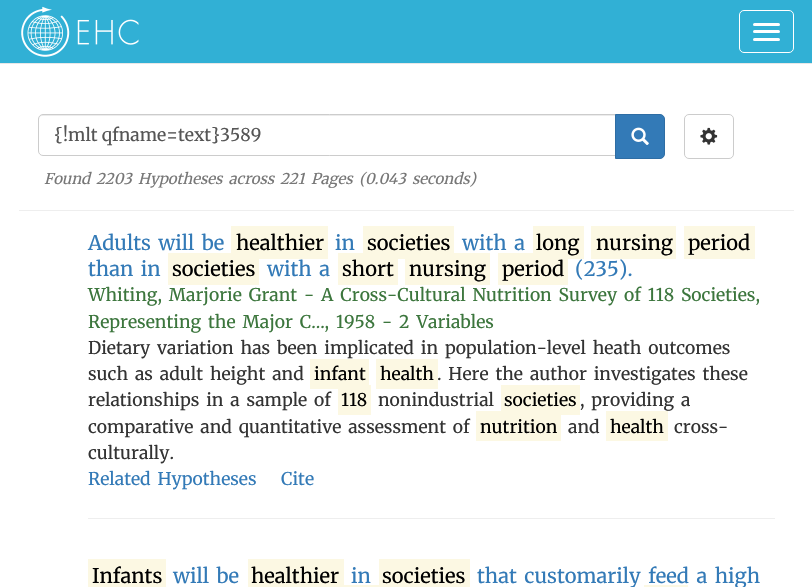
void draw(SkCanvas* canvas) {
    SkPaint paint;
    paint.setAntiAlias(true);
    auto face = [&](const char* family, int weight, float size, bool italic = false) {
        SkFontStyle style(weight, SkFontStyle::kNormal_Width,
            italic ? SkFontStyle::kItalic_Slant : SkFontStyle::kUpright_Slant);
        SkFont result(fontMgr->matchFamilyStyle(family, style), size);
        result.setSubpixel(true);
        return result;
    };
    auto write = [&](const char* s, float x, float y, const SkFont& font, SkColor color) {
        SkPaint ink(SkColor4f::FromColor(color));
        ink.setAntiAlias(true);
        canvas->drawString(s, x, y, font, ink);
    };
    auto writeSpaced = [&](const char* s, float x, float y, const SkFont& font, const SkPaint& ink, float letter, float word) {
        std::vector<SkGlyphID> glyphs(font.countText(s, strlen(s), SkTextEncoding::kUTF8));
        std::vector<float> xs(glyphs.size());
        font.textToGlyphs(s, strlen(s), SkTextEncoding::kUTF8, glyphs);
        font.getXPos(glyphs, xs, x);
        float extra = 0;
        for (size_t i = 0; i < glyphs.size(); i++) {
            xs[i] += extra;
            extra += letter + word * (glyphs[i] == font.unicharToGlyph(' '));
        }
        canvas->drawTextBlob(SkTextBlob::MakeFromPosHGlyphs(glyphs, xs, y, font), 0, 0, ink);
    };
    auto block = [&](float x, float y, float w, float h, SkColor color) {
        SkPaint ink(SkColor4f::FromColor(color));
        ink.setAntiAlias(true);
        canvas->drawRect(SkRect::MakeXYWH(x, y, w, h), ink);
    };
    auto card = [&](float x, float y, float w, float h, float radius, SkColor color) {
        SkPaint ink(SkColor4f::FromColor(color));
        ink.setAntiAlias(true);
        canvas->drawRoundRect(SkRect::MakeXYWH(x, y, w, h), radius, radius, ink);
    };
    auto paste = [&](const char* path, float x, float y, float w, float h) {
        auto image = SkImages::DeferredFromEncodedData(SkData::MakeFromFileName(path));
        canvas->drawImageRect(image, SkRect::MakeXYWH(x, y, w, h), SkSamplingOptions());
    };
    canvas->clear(SK_ColorWHITE);
    block(0, 0, 812, 63, SkColorSetRGB(49, 176, 213));
    block(0, 63, 812, 1, SkColorSetRGB(231, 231, 231));
    paste("pic1.png", 21, 6, 118, 51);
    paint.setStyle(SkPaint::kStroke_Style);
    paint.setStrokeWidth(1);
    paint.setColor(SK_ColorWHITE);
    canvas->drawRoundRect(SkRect::MakeXYWH(739.5f, 10.5f, 54, 42), 4.5f, 4.5f, paint);
    card(753, 23, 27, 3, 1.5f, SK_ColorWHITE);
    card(753, 30, 27, 3, 1.5f, SK_ColorWHITE);
    card(753, 38, 27, 3, 1.5f, SK_ColorWHITE);
    paint.setStyle(SkPaint::kFill_Style);
    paint.setColor(SkColorSetRGB(236, 236, 236));
    canvas->drawPath(SkPathBuilder().moveTo(42, 116).lineTo(615, 116).lineTo(615, 115).lineTo(43, 115).cubicTo(40, 115, 39, 117, 39, 120).cubicTo(39, 118, 40, 116, 42, 116).close().detach(), paint);
    paint.setStyle(SkPaint::kStroke_Style);
    paint.setColor(SkColorSetRGB(204, 204, 204));
    canvas->drawPath(SkPathBuilder().moveTo(43, 114.5f).lineTo(615.5f, 114.5f).lineTo(615.5f, 155.5f).lineTo(43, 155.5f).cubicTo(40.5f, 155.5f, 38.5f, 153.5f, 38.5f, 151).lineTo(38.5f, 119).cubicTo(38.5f, 116.5f, 40.5f, 114.5f, 43, 114.5f).close().detach(), paint);
    auto kFont1 = face("Merriweather", 300, 17.5f);
    write("{!mlt qfname=text}3589", 54, 141, kFont1, SkColorSetRGB(85, 85, 85));
    paint.setStyle(SkPaint::kFill_Style);
    paint.setColor(SkColorSetRGB(51, 122, 183));
    canvas->drawPath(SkPathBuilder().moveTo(615.5f, 114.5f).lineTo(660, 114.5f).cubicTo(662.5f, 114.5f, 664.5f, 116.5f, 664.5f, 119).lineTo(664.5f, 154).cubicTo(664.5f, 156.5f, 662.5f, 158.5f, 660, 158.5f).lineTo(615.5f, 158.5f).close().detach(), paint);
    paint.setStyle(SkPaint::kStroke_Style);
    paint.setColor(SkColorSetRGB(46, 109, 164));
    canvas->drawPath(SkPathBuilder().moveTo(615.5f, 114.5f).lineTo(660, 114.5f).cubicTo(662.5f, 114.5f, 664.5f, 116.5f, 664.5f, 119).lineTo(664.5f, 154).cubicTo(664.5f, 156.5f, 662.5f, 158.5f, 660, 158.5f).lineTo(615.5f, 158.5f).close().detach(), paint);
    paste("pic2.png", 631, 127, 18, 18);
    paint.setColor(SkColorSetRGB(204, 204, 204));
    canvas->drawRoundRect(SkRect::MakeXYWH(684.5f, 114.5f, 49, 44), 4.5f, 4.5f, paint);
    paste("pic3.png", 700, 127, 18, 18);
    block(19, 210, 775, 1, SkColorSetRGB(238, 238, 238));
    auto kFont2 = face("Merriweather", 300, 14.9f, true);
    write("Found", 44, 184, kFont2, SkColorSetRGB(119, 119, 119));
    write("2203", 96, 184, kFont2, SkColorSetRGB(119, 119, 119));
    paint.setStyle(SkPaint::kFill_Style);
    paint.setColor(SkColorSetRGB(119, 119, 119));
    writeSpaced("Hypotheses across", 138, 184, kFont2, paint, 0, 2.75f);
    write("221", 280, 184, kFont2, SkColorSetRGB(119, 119, 119));
    writeSpaced("Pages (", 311, 184, kFont2, paint, 0, 2.75f);
    write("0.043", 365, 184, kFont2, SkColorSetRGB(119, 119, 119));
    write("seconds)", 412, 184, kFont2, SkColorSetRGB(119, 119, 119));
    auto kFont3 = face("Merriweather", 300, 20.1f);
    paint.setColor(SkColorSetRGB(51, 122, 183));
    writeSpaced("Adults will be", 88, 250, kFont3, paint, 0, 2.75f);
    block(231, 226, 97, 33, SkColorSetRGB(252, 248, 227));
    write("healthier", 236, 250, kFont3, SK_ColorBLACK);
    write("in", 335, 250, kFont3, SkColorSetRGB(51, 122, 183));
    block(363, 226, 91, 33, SkColorSetRGB(252, 248, 227));
    write("societies", 367, 250, kFont3, SK_ColorBLACK);
    writeSpaced("with a", 462, 250, kFont3, paint, 0, 2.75f);
    block(533, 226, 51, 33, SkColorSetRGB(252, 248, 227));
    write("long", 536, 250, kFont3, SK_ColorBLACK);
    block(591, 226, 85, 33, SkColorSetRGB(252, 248, 227));
    write("nursing", 596, 250, kFont3, SK_ColorBLACK);
    block(684, 226, 71, 33, SkColorSetRGB(252, 248, 227));
    write("period", 688, 250, kFont3, SK_ColorBLACK);
    writeSpaced("than in", 88, 276, kFont3, paint, 0, 2.75f);
    block(168, 253, 91, 32, SkColorSetRGB(252, 248, 227));
    write("societies", 172, 276, kFont3, SK_ColorBLACK);
    writeSpaced("with a", 267, 276, kFont3, paint, 0, 2.75f);
    block(338, 253, 60, 32, SkColorSetRGB(252, 248, 227));
    write("short", 342, 276, kFont3, SK_ColorBLACK);
    block(405, 253, 85, 32, SkColorSetRGB(252, 248, 227));
    write("nursing", 409, 276, kFont3, SK_ColorBLACK);
    block(498, 253, 70, 32, SkColorSetRGB(252, 248, 227));
    write("period", 502, 276, kFont3, SK_ColorBLACK);
    write("(235).", 575, 276, kFont3, SkColorSetRGB(51, 122, 183));
    paint.setColor(SkColorSetRGB(60, 118, 61));
    writeSpaced("Whiting, Marjorie Grant - A Cross-Cultural Nutrition Survey of 118 Societies,", 88, 301, kFont1, paint, 0, 2.75f);
    writeSpaced("Representing the Major C..., 1958 - 2 Variables", 88, 328, kFont1, paint, 0, 2.75f);
    paint.setColor(SkColorSetRGB(51, 51, 51));
    writeSpaced("Dietary variation has been implicated in population-level heath outcomes", 88, 354, kFont1, paint, 0, 2.75f);
    writeSpaced("such as adult height and", 88, 380, kFont1, paint, 0, 2.75f);
    block(310, 359, 59, 30, SkColorSetRGB(252, 248, 227));
    write("infant", 314, 380, kFont1, SK_ColorBLACK);
    block(376, 359, 62, 30, SkColorSetRGB(252, 248, 227));
    write("health", 380, 380, kFont1, SK_ColorBLACK);
    writeSpaced(". Here the author investigates these", 437, 380, kFont1, paint, 0, 2.75f);
    writeSpaced("relationships in a sample of", 88, 406, kFont1, paint, 0, 2.75f);
    block(338, 385, 33, 30, SkColorSetRGB(252, 248, 227));
    write("118", 341, 406, kFont1, SK_ColorBLACK);
    write("nonindustrial", 378, 406, kFont1, SkColorSetRGB(51, 51, 51));
    block(501, 385, 79, 30, SkColorSetRGB(252, 248, 227));
    write("societies", 504, 406, kFont1, SK_ColorBLACK);
    writeSpaced(", providing a", 580, 406, kFont1, paint, 0, 2.75f);
    writeSpaced("comparative and quantitative assessment of", 88, 433, kFont1, paint, 0, 2.75f);
    block(476, 411, 85, 30, SkColorSetRGB(252, 248, 227));
    write("nutrition", 480, 433, kFont1, SK_ColorBLACK);
    write("and", 568, 433, kFont1, SkColorSetRGB(51, 51, 51));
    block(606, 411, 62, 30, SkColorSetRGB(252, 248, 227));
    write("health", 610, 433, kFont1, SK_ColorBLACK);
    write("cross-", 674, 433, kFont1, SkColorSetRGB(51, 51, 51));
    write("culturally.", 88, 459, kFont1, SkColorSetRGB(51, 51, 51));
    paint.setColor(SkColorSetRGB(51, 122, 183));
    writeSpaced("Related Hypotheses", 88, 485, kFont1, paint, 0, 2.75f);
    write("Cite", 281, 485, kFont1, SkColorSetRGB(51, 122, 183));
    block(88, 518, 687, 1, SkColorSetRGB(238, 238, 238));
    block(88, 559, 78, 28, SkColorSetRGB(252, 248, 227));
    write("Infants", 92, 583, kFont3, SK_ColorBLACK);
    writeSpaced("will be", 173, 583, kFont3, paint, 0, 2.75f);
    block(248, 559, 96, 28, SkColorSetRGB(252, 248, 227));
    write("healthier", 251, 583, kFont3, SK_ColorBLACK);
    write("in", 351, 583, kFont3, SkColorSetRGB(51, 122, 183));
    block(379, 559, 91, 28, SkColorSetRGB(252, 248, 227));
    write("societies", 382, 583, kFont3, SK_ColorBLACK);
    writeSpaced("that customarily feed a high", 477, 583, kFont3, paint, 0, 2.75f);
    block(344, 585, 35, 2, SkColorSetRGB(252, 248, 227));
    block(644, 585, 44, 2, SkColorSetRGB(252, 248, 227));
}
